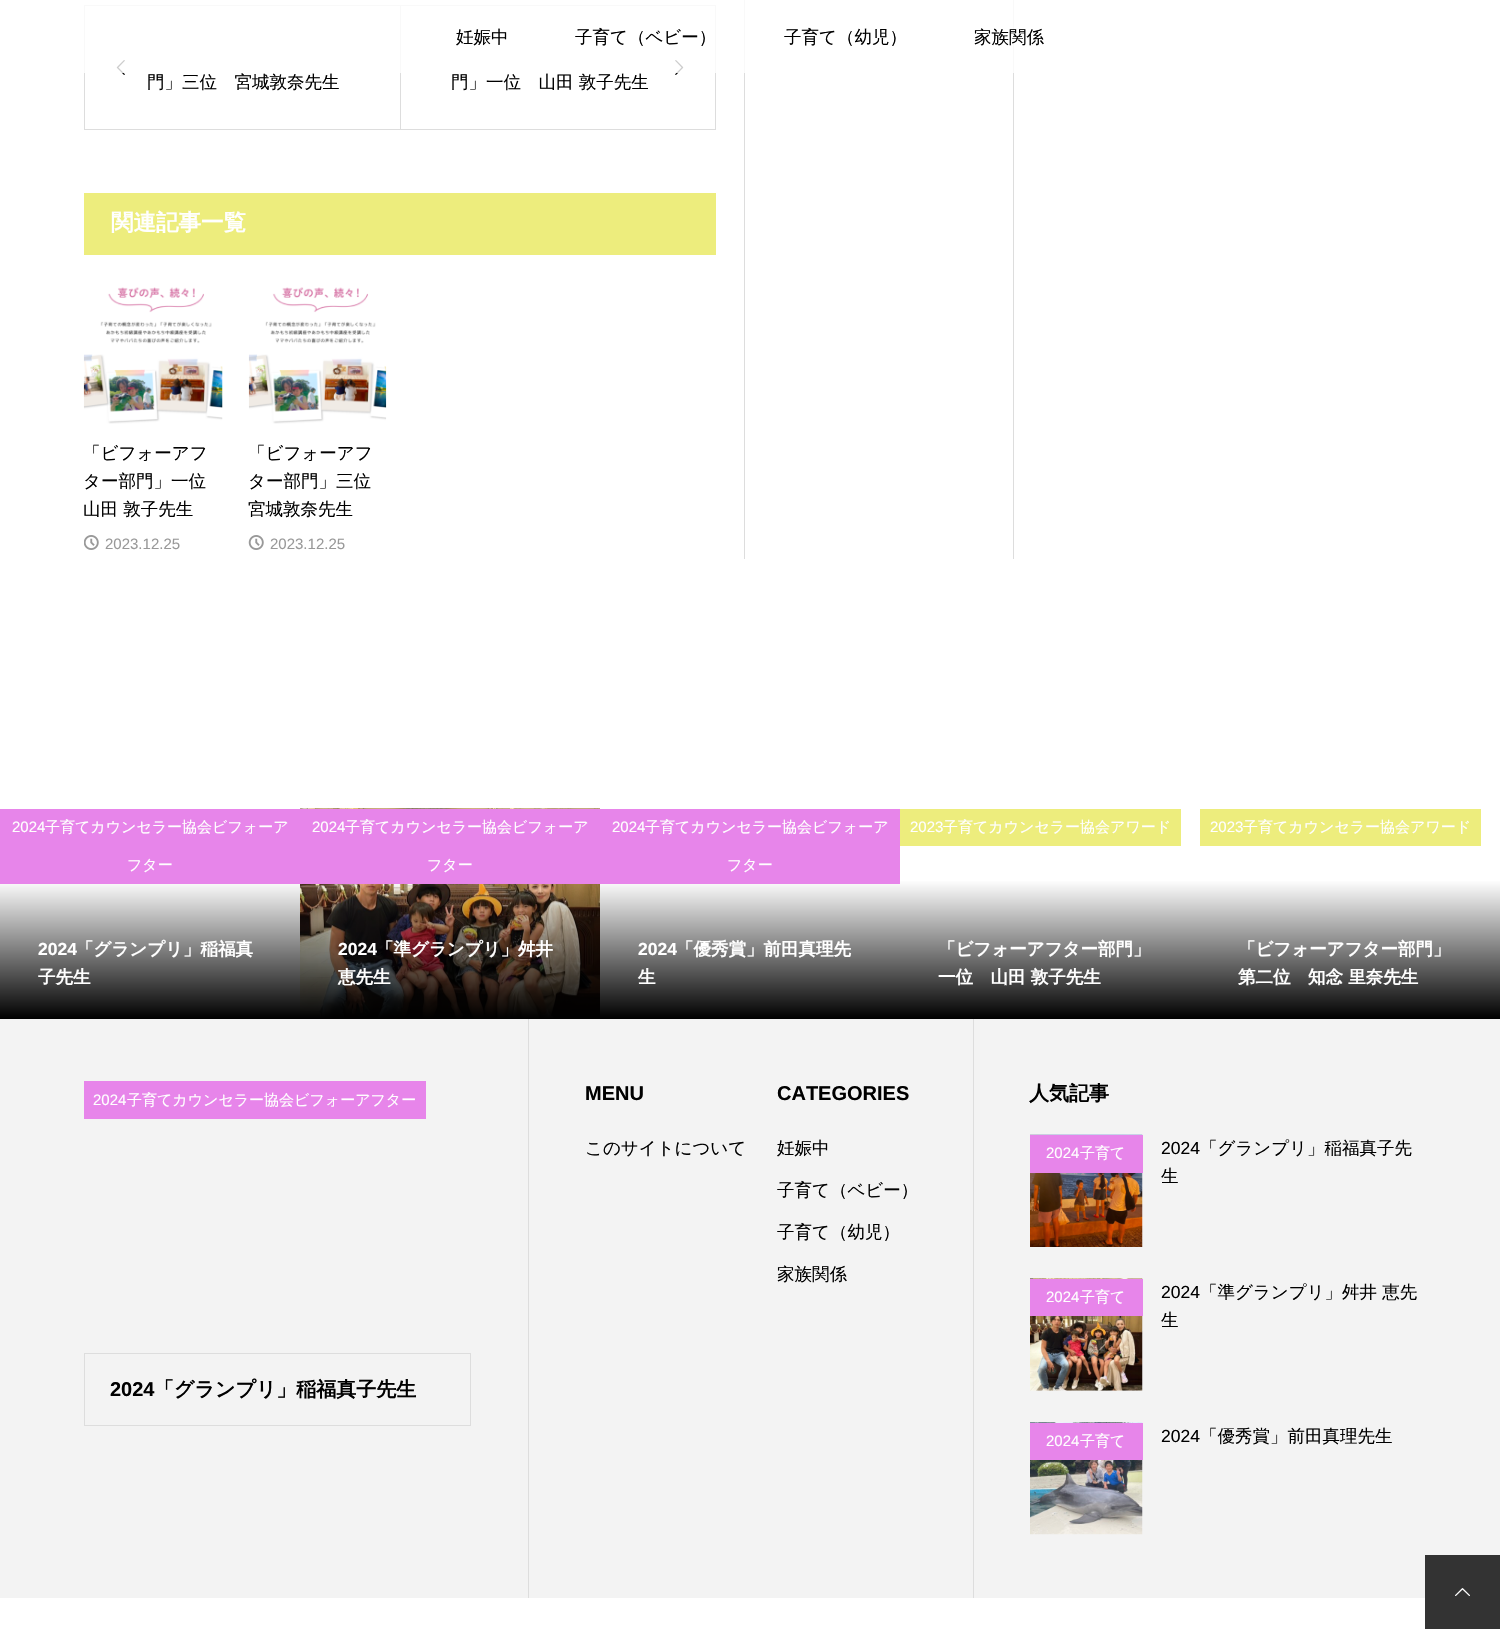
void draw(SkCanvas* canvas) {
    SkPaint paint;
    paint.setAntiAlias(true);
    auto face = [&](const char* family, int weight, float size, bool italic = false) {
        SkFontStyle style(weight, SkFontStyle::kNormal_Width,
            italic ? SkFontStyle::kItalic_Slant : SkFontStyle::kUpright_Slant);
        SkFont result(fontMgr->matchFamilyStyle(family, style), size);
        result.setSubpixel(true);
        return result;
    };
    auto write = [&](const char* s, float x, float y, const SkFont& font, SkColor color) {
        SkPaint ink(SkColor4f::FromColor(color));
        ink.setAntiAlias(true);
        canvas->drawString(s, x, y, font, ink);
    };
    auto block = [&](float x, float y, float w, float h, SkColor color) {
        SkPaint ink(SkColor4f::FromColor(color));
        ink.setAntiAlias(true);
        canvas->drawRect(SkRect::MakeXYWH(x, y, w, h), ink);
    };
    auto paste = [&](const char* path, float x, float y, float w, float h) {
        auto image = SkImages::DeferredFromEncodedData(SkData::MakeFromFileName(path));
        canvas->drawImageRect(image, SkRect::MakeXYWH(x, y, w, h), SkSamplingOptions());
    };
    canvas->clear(SK_ColorWHITE);
    paint.setStyle(SkPaint::kStroke_Style);
    paint.setStrokeWidth(1);
    paint.setColor(SkColorSetRGB(221, 221, 221));
    canvas->drawRect(SkRect::MakeXYWH(84.5f, 5.5f, 316, 124), paint);
    paste("pic1.png", 116, 60, 9, 15);
    block(401, 5, 315, 1, SkColorSetRGB(221, 221, 221));
    block(715, 5, 1, 125, SkColorSetRGB(221, 221, 221));
    paste("pic2.png", 675, 60, 9, 15);
    block(744, 0, 1, 559, SkColorSetRGB(221, 221, 221));
    block(1013, 0, 1, 559, SkColorSetRGB(221, 221, 221));
    block(84, 0, 930, 73, SkColorSetARGB(204, 255, 255, 255));
    auto kFont1 = face("WenQuanYi Zen Hei", 500, 17.5f);
    write("妊娠中", 456, 43, kFont1, SK_ColorBLACK);
    write("子育て（ベビー）", 575, 43, kFont1, SK_ColorBLACK);
    write("子育て（幼児）", 784, 43, kFont1, SK_ColorBLACK);
    write("家族関係", 974, 43, kFont1, SK_ColorBLACK);
    write("門」三位　宮城敦奈先生", 147, 88, kFont1, SK_ColorBLACK);
    block(401, 129, 315, 1, SkColorSetRGB(221, 221, 221));
    write("門」一位　山田 敦子先生", 451, 88, kFont1, SK_ColorBLACK);
    block(84, 193, 632, 62, SkColorSetRGB(237, 237, 125));
    auto kFont2 = face("WenQuanYi Zen Hei", 700, 22.5f);
    write("関連記事一覧", 111, 230, kFont2, SK_ColorWHITE);
    paste("pic3.png", 83, 287, 140, 137);
    write("「ビフォーアフ", 83, 459, kFont1, SK_ColorBLACK);
    write("ター部門」一位", 83, 487, kFont1, SK_ColorBLACK);
    write("山田 敦子先生", 83, 515, kFont1, SK_ColorBLACK);
    paste("pic4.png", 84, 535, 15, 15);
    auto kFont3 = face("Liberation Sans", 400, 15);
    write("2023.12.25", 105, 549, kFont3, SkColorSetRGB(153, 153, 153));
    paste("pic5.png", 248, 287, 139, 137);
    write("「ビフォーアフ", 248, 459, kFont1, SK_ColorBLACK);
    write("ター部門」三位", 248, 487, kFont1, SK_ColorBLACK);
    write("宮城敦奈先生", 248, 515, kFont1, SK_ColorBLACK);
    paste("pic6.png", 248, 535, 16, 15);
    write("2023.12.25", 270, 549, kFont3, SkColorSetRGB(153, 153, 153));
    paste("pic7.png", 300, 808, 300, 210);
    block(0, 809, 900, 75, SkColorSetRGB(231, 133, 234));
    write("2024", 12, 832, kFont3, SK_ColorWHITE);
    auto kFont4 = face("WenQuanYi Zen Hei", 500, 15);
    write("子育てカウンセラー協会ビフォーア", 45, 832, kFont4, SK_ColorWHITE);
    write("フター", 127, 870, kFont4, SK_ColorWHITE);
    paint.setStyle(SkPaint::kFill_Style);
    {
        const SkColor colors[] = {SK_ColorWHITE, SK_ColorBLACK};
        const float stops[] = {0, 1};
        const SkPoint ends[] = {{150, 880}, {150, 1019}};
        paint.setShader(SkGradientShader::MakeLinear(ends, colors, stops, 2, SkTileMode::kClamp));
        paint.setAlpha(255);
    }
    canvas->drawRect(SkRect::MakeXYWH(0, 884, 300, 135), paint);
    auto kFont5 = face("Liberation Sans", 700, 17.5f);
    write("2024", 38, 955, kFont5, SK_ColorWHITE);
    auto kFont6 = face("WenQuanYi Zen Hei", 700, 17.5f);
    write("「グランプリ」稲福真", 76, 955, kFont6, SK_ColorWHITE);
    write("子先生", 38, 983, kFont6, SK_ColorWHITE);
    write("2024", 312, 832, kFont3, SK_ColorWHITE);
    write("子育てカウンセラー協会ビフォーア", 345, 832, kFont4, SK_ColorWHITE);
    write("フター", 427, 870, kFont4, SK_ColorWHITE);
    {
        const SkColor colors[] = {SkColorSetARGB(0, 0, 0, 0), SK_ColorBLACK};
        const float stops[] = {0, 1};
        const SkPoint ends[] = {{450, 880}, {450, 1019}};
        paint.setShader(SkGradientShader::MakeLinear(ends, colors, stops, 2, SkTileMode::kClamp));
        paint.setAlpha(255);
    }
    canvas->drawRect(SkRect::MakeXYWH(300, 884, 300, 135), paint);
    write("2024", 338, 955, kFont5, SK_ColorWHITE);
    write("「準グランプリ」舛井", 376, 955, kFont6, SK_ColorWHITE);
    write("恵先生", 338, 983, kFont6, SK_ColorWHITE);
    write("2024", 612, 832, kFont3, SK_ColorWHITE);
    write("子育てカウンセラー協会ビフォーア", 645, 832, kFont4, SK_ColorWHITE);
    write("フター", 727, 870, kFont4, SK_ColorWHITE);
    {
        const SkColor colors[] = {SK_ColorWHITE, SK_ColorBLACK};
        const float stops[] = {0, 1};
        const SkPoint ends[] = {{750, 880}, {750, 1019}};
        paint.setShader(SkGradientShader::MakeLinear(ends, colors, stops, 2, SkTileMode::kClamp));
        paint.setAlpha(255);
    }
    canvas->drawRect(SkRect::MakeXYWH(600, 884, 300, 135), paint);
    write("2024", 638, 955, kFont5, SK_ColorWHITE);
    write("「優秀賞」前田真理先", 676, 955, kFont6, SK_ColorWHITE);
    write("生", 638, 983, kFont6, SK_ColorWHITE);
    block(900, 809, 281, 37, SkColorSetRGB(237, 237, 125));
    write("2023", 910, 832, kFont3, SK_ColorWHITE);
    write("子育てカウンセラー協会アワード", 943, 832, kFont4, SK_ColorWHITE);
    {
        const SkColor colors[] = {SK_ColorWHITE, SK_ColorBLACK};
        const float stops[] = {0, 1};
        const SkPoint ends[] = {{1050, 880}, {1050, 1019}};
        paint.setShader(SkGradientShader::MakeLinear(ends, colors, stops, 2, SkTileMode::kClamp));
        paint.setAlpha(255);
    }
    canvas->drawRect(SkRect::MakeXYWH(900, 881, 300, 138), paint);
    write("「ビフォーアフター部門」", 938, 955, kFont6, SK_ColorWHITE);
    write("一位　山田 敦子先生", 938, 983, kFont6, SK_ColorWHITE);
    block(1200, 809, 281, 37, SkColorSetRGB(237, 237, 125));
    write("2023", 1210, 832, kFont3, SK_ColorWHITE);
    write("子育てカウンセラー協会アワード", 1243, 832, kFont4, SK_ColorWHITE);
    {
        const SkColor colors[] = {SK_ColorWHITE, SK_ColorBLACK};
        const float stops[] = {0, 1};
        const SkPoint ends[] = {{1350, 880}, {1350, 1019}};
        paint.setShader(SkGradientShader::MakeLinear(ends, colors, stops, 2, SkTileMode::kClamp));
        paint.setAlpha(255);
    }
    canvas->drawRect(SkRect::MakeXYWH(1200, 881, 300, 138), paint);
    write("「ビフォーアフター部門」", 1238, 955, kFont6, SK_ColorWHITE);
    write("第二位　知念 里奈先生", 1238, 983, kFont6, SK_ColorWHITE);
    block(0, 1019, 1500, 579, SkColorSetRGB(243, 243, 243));
    block(84, 1081, 342, 38, SkColorSetRGB(231, 133, 234));
    write("2024", 93, 1105, kFont3, SK_ColorWHITE);
    write("子育てカウンセラー協会ビフォーアフター", 127, 1105, kFont4, SK_ColorWHITE);
    paint.setStyle(SkPaint::kStroke_Style);
    paint.setShader(nullptr);
    paint.setColor(SkColorSetRGB(221, 221, 221));
    canvas->drawRect(SkRect::MakeXYWH(84.5f, 1353.5f, 386, 72), paint);
    auto kFont7 = face("Liberation Sans", 700, 20);
    write("2024", 110, 1396, kFont7, SK_ColorBLACK);
    auto kFont8 = face("WenQuanYi Zen Hei", 700, 20);
    write("「グランプリ」稲福真子先生", 154, 1396, kFont8, SK_ColorBLACK);
    block(528, 1019, 1, 579, SkColorSetRGB(221, 221, 221));
    write("MENU", 585, 1100, kFont7, SK_ColorBLACK);
    write("このサイトについて", 585, 1154, kFont1, SK_ColorBLACK);
    write("CATEGORIES", 777, 1100, kFont7, SK_ColorBLACK);
    write("妊娠中", 777, 1154, kFont1, SK_ColorBLACK);
    write("子育て（ベビー）", 777, 1196, kFont1, SK_ColorBLACK);
    write("子育て（幼児）", 777, 1238, kFont1, SK_ColorBLACK);
    write("家族関係", 777, 1280, kFont1, SK_ColorBLACK);
    block(973, 1019, 1, 579, SkColorSetRGB(221, 221, 221));
    write("人気記事", 1029, 1100, kFont8, SK_ColorBLACK);
    paste("pic8.png", 1030, 1134, 113, 113);
    block(1030, 1135, 113, 38, SkColorSetRGB(231, 133, 234));
    write("2024", 1046, 1158, kFont3, SK_ColorWHITE);
    write("子育て", 1080, 1158, kFont4, SK_ColorWHITE);
    auto kFont9 = face("Liberation Sans", 400, 17.5f);
    write("2024", 1161, 1154, kFont9, SK_ColorBLACK);
    write("「グランプリ」稲福真子先", 1200, 1154, kFont1, SK_ColorBLACK);
    write("生", 1161, 1182, kFont1, SK_ColorBLACK);
    paste("pic9.png", 1030, 1278, 113, 113);
    block(1030, 1279, 113, 37, SkColorSetRGB(231, 133, 234));
    write("2024", 1046, 1302, kFont3, SK_ColorWHITE);
    write("子育て", 1080, 1302, kFont4, SK_ColorWHITE);
    write("2024", 1161, 1298, kFont9, SK_ColorBLACK);
    write("「準グランプリ」舛井 恵先", 1200, 1298, kFont1, SK_ColorBLACK);
    write("生", 1161, 1326, kFont1, SK_ColorBLACK);
    paste("pic10.png", 1030, 1422, 113, 113);
    block(1030, 1423, 113, 37, SkColorSetRGB(231, 133, 234));
    write("2024", 1046, 1446, kFont3, SK_ColorWHITE);
    write("子育て", 1080, 1446, kFont4, SK_ColorWHITE);
    write("2024", 1161, 1442, kFont9, SK_ColorBLACK);
    write("「優秀賞」前田真理先生", 1200, 1442, kFont1, SK_ColorBLACK);
    block(1425, 1555, 75, 74, SkColorSetRGB(51, 51, 51));
    paste("pic11.png", 1455, 1588, 15, 8);
}
